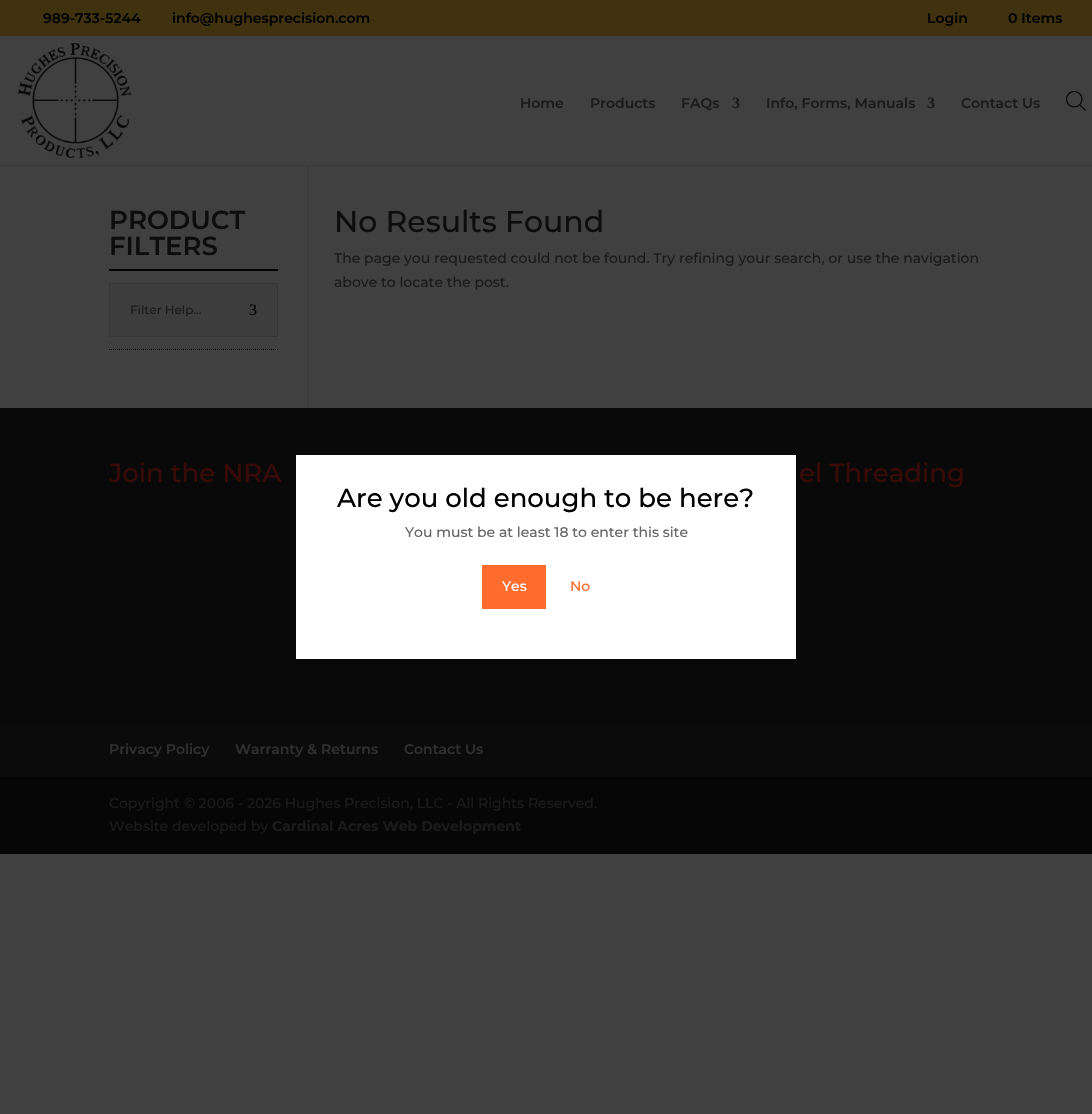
void draw(SkCanvas* canvas) {
    SkPaint paint;
    paint.setAntiAlias(true);
    auto face = [&](const char* family, int weight, float size, bool italic = false) {
        SkFontStyle style(weight, SkFontStyle::kNormal_Width,
            italic ? SkFontStyle::kItalic_Slant : SkFontStyle::kUpright_Slant);
        SkFont result(fontMgr->matchFamilyStyle(family, style), size);
        result.setSubpixel(true);
        return result;
    };
    auto write = [&](const char* s, float x, float y, const SkFont& font, SkColor color) {
        SkPaint ink(SkColor4f::FromColor(color));
        ink.setAntiAlias(true);
        canvas->drawString(s, x, y, font, ink);
    };
    auto block = [&](float x, float y, float w, float h, SkColor color) {
        SkPaint ink(SkColor4f::FromColor(color));
        ink.setAntiAlias(true);
        canvas->drawRect(SkRect::MakeXYWH(x, y, w, h), ink);
    };
    auto paste = [&](const char* path, float x, float y, float w, float h) {
        auto image = SkImages::DeferredFromEncodedData(SkData::MakeFromFileName(path));
        canvas->drawImageRect(image, SkRect::MakeXYWH(x, y, w, h), SkSamplingOptions());
    };
    canvas->clear(SkColorSetRGB(64, 64, 64));
    block(0, 165, 1092, 1, SkColorSetRGB(58, 58, 58));
    block(0, 0, 1092, 36, SkColorSetRGB(64, 49, 15));
    auto kFont1 = face("Montserrat", 600, 14);
    write("989-733-5244", 43, 23, kFont1, SK_ColorBLACK);
    write("info@hughesprecision.com", 172, 23, kFont1, SK_ColorBLACK);
    write("Login", 927, 23, kFont1, SK_ColorBLACK);
    write("0 Items", 1008, 23, kFont1, SK_ColorBLACK);
    paste("pic1.png", 17, 43, 115, 115);
    write("Home", 520, 108, kFont1, SkColorSetRGB(26, 26, 26));
    write("Products", 590, 108, kFont1, SkColorSetRGB(26, 26, 26));
    write("FAQs", 681, 108, kFont1, SkColorSetRGB(26, 26, 26));
    auto kFont2 = face("Liberation Serif", 700, 16);
    write("3", 732, 108, kFont2, SkColorSetRGB(26, 26, 26));
    write("Info, Forms, Manuals", 766, 108, kFont1, SkColorSetRGB(26, 26, 26));
    write("3", 927, 108, kFont2, SkColorSetRGB(26, 26, 26));
    write("Contact Us", 961, 108, kFont1, SkColorSetRGB(26, 26, 26));
    paste("pic2.png", 1066, 91, 20, 20);
    block(308, 166, 1, 242, SkColorSetRGB(57, 57, 57));
    block(308, 165, 1, 1, SkColorSetRGB(51, 51, 51));
    block(109, 269, 169, 2, SK_ColorBLACK);
    auto kFont3 = face("Montserrat", 600, 26);
    write("PRODUCT", 109, 229, kFont3, SkColorSetRGB(13, 13, 13));
    write("FILTERS", 109, 255, kFont3, SkColorSetRGB(13, 13, 13));
    paint.setColor(SkColorSetRGB(61, 61, 61));
    canvas->drawRect(SkRect::MakeXYWH(109.5f, 283.5f, 168, 53), paint);
    paint.setStyle(SkPaint::kStroke_Style);
    paint.setStrokeWidth(1);
    paint.setColor(SkColorSetRGB(54, 54, 54));
    canvas->drawRect(SkRect::MakeXYWH(109.5f, 283.5f, 168, 53), paint);
    auto kFont4 = face("Montserrat", 500, 12);
    write("Filter Help...", 130, 314, kFont4, SkColorSetRGB(26, 26, 26));
    auto kFont5 = face("Liberation Serif", 400, 16);
    write("3", 249, 315, kFont5, SK_ColorBLACK);
    paint.setColor(SK_ColorBLACK);
    paint.setPathEffect(SkDashPathEffect::Make({{1, 1}}, 0));
    canvas->drawPath(SkPathBuilder().moveTo(109, 349.5f).lineTo(278, 349.5f).detach(), paint);
    paint.setPathEffect(nullptr);
    auto kFont6 = face("Montserrat", 500, 30);
    write("No Results Found", 334, 232, kFont6, SkColorSetRGB(13, 13, 13));
    auto kFont7 = face("Montserrat", 500, 14);
    write("The page you requested could not be found. Try refining your search, or use the navigation", 334, 263, kFont7, SkColorSetRGB(26, 26, 26));
    write("above to locate the post.", 334, 287, kFont7, SkColorSetRGB(26, 26, 26));
    block(0, 408, 1092, 315, SkColorSetRGB(9, 9, 9));
    auto kFont8 = face("Montserrat", 500, 26);
    write("Join the NRA", 109, 482, kFont8, SkColorSetRGB(56, 11, 8));
    write("el Threading", 799, 482, kFont8, SkColorSetRGB(56, 11, 8));
    block(0, 723, 1092, 54, SkColorSetRGB(11, 11, 11));
    write("Privacy Policy", 109, 754, kFont1, SkColorSetRGB(47, 47, 47));
    write("Warranty & Returns", 235, 754, kFont1, SkColorSetRGB(47, 47, 47));
    write("Contact Us", 404, 754, kFont1, SkColorSetRGB(47, 47, 47));
    block(0, 777, 1092, 77, SkColorSetRGB(6, 6, 6));
    write("Copyright © 2006 - 2026 Hughes Precision, LLC - All Rights Reserved.", 109, 808, kFont7, SkColorSetRGB(26, 26, 26));
    write("Website developed by", 109, 831, kFont7, SkColorSetRGB(26, 26, 26));
    auto kFont9 = face("Montserrat", 700, 14);
    write("Cardinal Acres Web Development", 272, 831, kFont9, SkColorSetRGB(26, 26, 26));
    block(296, 455, 500, 204, SK_ColorWHITE);
    write("Are you old enough to be here?", 337, 507, kFont8, SK_ColorBLACK);
    write("You must be at least 18 to enter this site", 405, 537, kFont7, SkColorSetRGB(102, 102, 102));
    block(482, 565, 64, 44, SkColorSetRGB(255, 108, 45));
    write("Yes", 502, 591, kFont7, SK_ColorWHITE);
    write("No", 570, 591, kFont7, SkColorSetRGB(255, 108, 45));
}
